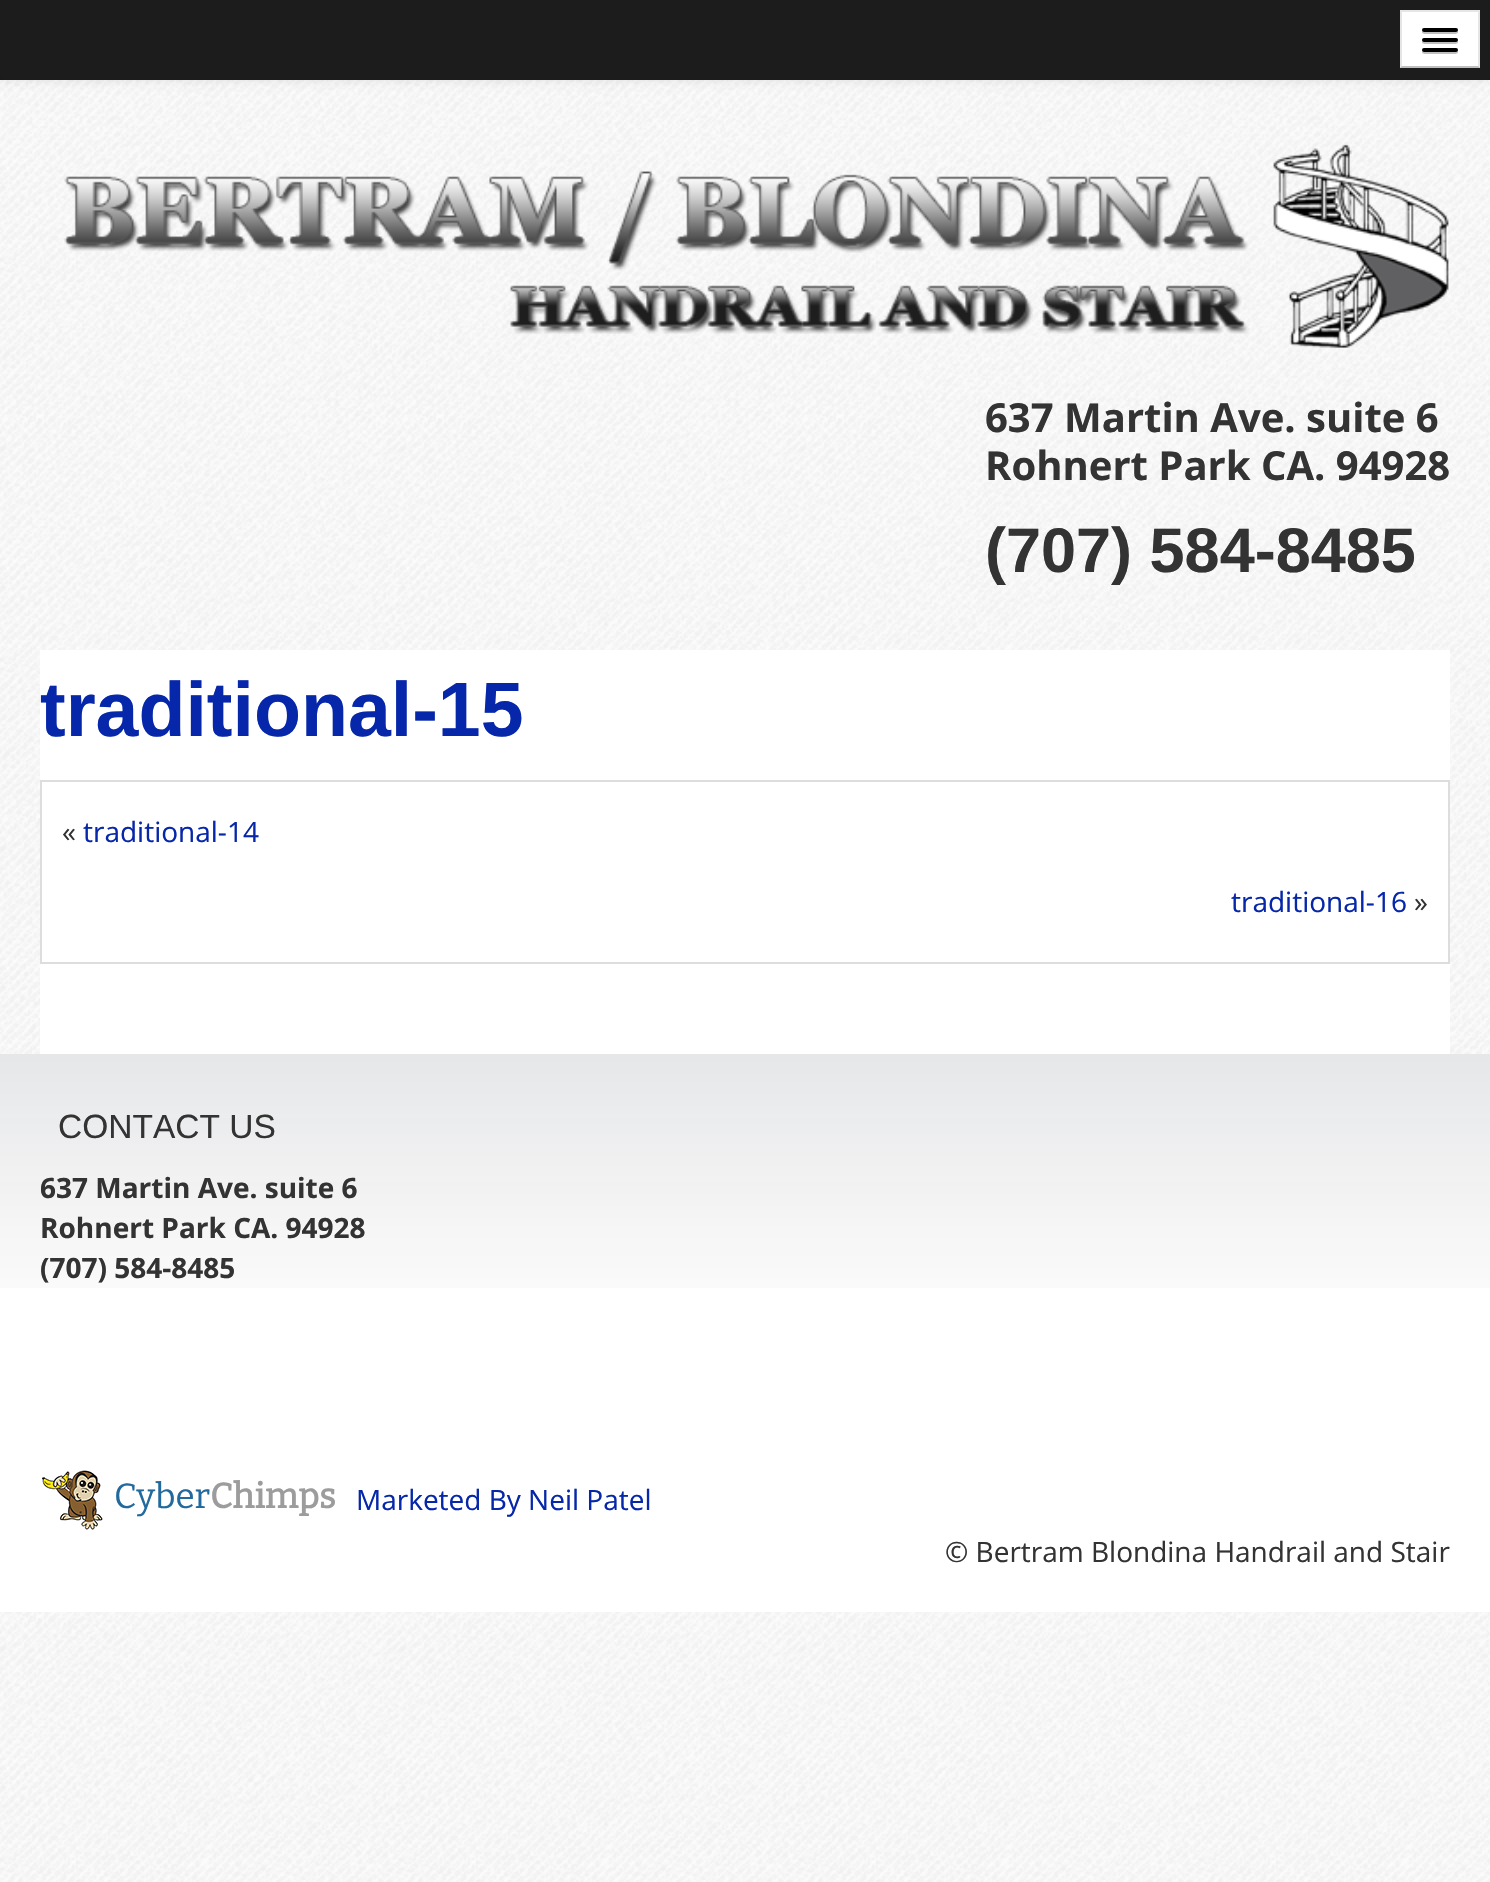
void draw(SkCanvas* canvas) {
    SkPaint paint;
    paint.setAntiAlias(true);
    auto face = [&](const char* family, int weight, float size, bool italic = false) {
        SkFontStyle style(weight, SkFontStyle::kNormal_Width,
            italic ? SkFontStyle::kItalic_Slant : SkFontStyle::kUpright_Slant);
        SkFont result(fontMgr->matchFamilyStyle(family, style), size);
        result.setSubpixel(true);
        return result;
    };
    auto write = [&](const char* s, float x, float y, const SkFont& font, SkColor color) {
        SkPaint ink(SkColor4f::FromColor(color));
        ink.setAntiAlias(true);
        canvas->drawString(s, x, y, font, ink);
    };
    auto block = [&](float x, float y, float w, float h, SkColor color) {
        SkPaint ink(SkColor4f::FromColor(color));
        ink.setAntiAlias(true);
        canvas->drawRect(SkRect::MakeXYWH(x, y, w, h), ink);
    };
    auto card = [&](float x, float y, float w, float h, float radius, SkColor color) {
        SkPaint ink(SkColor4f::FromColor(color));
        ink.setAntiAlias(true);
        canvas->drawRoundRect(SkRect::MakeXYWH(x, y, w, h), radius, radius, ink);
    };
    auto paste = [&](const char* path, float x, float y, float w, float h) {
        auto image = SkImages::DeferredFromEncodedData(SkData::MakeFromFileName(path));
        canvas->drawImageRect(image, SkRect::MakeXYWH(x, y, w, h), SkSamplingOptions());
    };
    canvas->clear(SK_ColorWHITE);
    paste("pic1.png", 0, 80, 1490, 1802);
    block(0, 0, 1490, 80, SkColorSetRGB(28, 28, 28));
    canvas->save();
    canvas->clipPath(SkPathBuilder(SkPathFillType::kEvenOdd).moveTo(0, 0).lineTo(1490, 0).lineTo(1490, 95).lineTo(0, 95).close().moveTo(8, 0).lineTo(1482, 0).cubicTo(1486.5f, 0, 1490, 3.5f, 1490, 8).lineTo(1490, 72).cubicTo(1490, 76.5f, 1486.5f, 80, 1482, 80).lineTo(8, 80).cubicTo(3.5f, 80, 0, 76.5f, 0, 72).lineTo(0, 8).cubicTo(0, 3.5f, 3.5f, 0, 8, 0).close().detach(), true);
    paint.setColor(SkColorSetARGB(18, 0, 0, 0));
    paint.setMaskFilter(SkMaskFilter::MakeBlur(kNormal_SkBlurStyle, 4));
    canvas->drawRoundRect(SkRect::MakeXYWH(0, 2, 1490, 80), 8, 8, paint);
    paint.setMaskFilter(nullptr);
    canvas->restore();
    block(1400, 10, 80, 58, SK_ColorWHITE);
    paint.setColor(SkColorSetRGB(230, 230, 230));
    canvas->drawPath(SkPathBuilder().moveTo(1400, 10).lineTo(1480, 10).lineTo(1478, 12).lineTo(1402, 12).close().detach(), paint);
    paint.setColor(SkColorSetARGB(26, 0, 0, 0));
    canvas->drawPath(SkPathBuilder().moveTo(1480, 10).lineTo(1480, 68).lineTo(1478, 66).lineTo(1478, 12).close().detach(), paint);
    paint.setColor(SkColorSetARGB(64, 0, 0, 0));
    canvas->drawPath(SkPathBuilder().moveTo(1480, 68).lineTo(1400, 68).lineTo(1402, 66).lineTo(1478, 66).close().detach(), paint);
    paint.setColor(SkColorSetARGB(26, 0, 0, 0));
    canvas->drawPath(SkPathBuilder().moveTo(1400, 68).lineTo(1400, 10).lineTo(1402, 12).lineTo(1402, 66).close().detach(), paint);
    paint.setColor(SkColorSetRGB(191, 191, 191));
    canvas->drawPath(SkPathBuilder().moveTo(1422.5f, 31).cubicTo(1420, 35, 1429, 34, 1429.5f, 34).lineTo(1450.5f, 34).cubicTo(1451, 34, 1460, 35, 1457.5f, 31).cubicTo(1457.5f, 31.5f, 1456.5f, 32, 1456, 32).lineTo(1424, 32).cubicTo(1423.5f, 32, 1422.5f, 31.5f, 1422.5f, 31).close().detach(), paint);
    card(1422, 28, 36, 4, 2, SK_ColorBLACK);
    canvas->drawPath(SkPathBuilder().moveTo(1422.5f, 41).cubicTo(1420, 45, 1429, 44, 1429.5f, 44).lineTo(1450.5f, 44).cubicTo(1451, 44, 1460, 45, 1457.5f, 41).cubicTo(1457.5f, 41.5f, 1456.5f, 42, 1456, 42).lineTo(1424, 42).cubicTo(1423.5f, 42, 1422.5f, 41.5f, 1422.5f, 41).close().detach(), paint);
    card(1422, 38, 36, 4, 2, SK_ColorBLACK);
    canvas->drawPath(SkPathBuilder().moveTo(1422.5f, 51).cubicTo(1420, 55, 1429, 54, 1429.5f, 54).lineTo(1450.5f, 54).cubicTo(1451, 54, 1460, 55, 1457.5f, 51).cubicTo(1457.5f, 51.5f, 1456.5f, 52, 1456, 52).lineTo(1424, 52).cubicTo(1423.5f, 52, 1422.5f, 51.5f, 1422.5f, 51).close().detach(), paint);
    card(1422, 48, 36, 4, 2, SK_ColorBLACK);
    paste("pic2.png", 64, 144, 1385, 204);
    auto kFont1 = face("Open Sans", 700, 40);
    write("637 Martin Ave. suite 6", 985, 432, kFont1, SkColorSetRGB(51, 51, 51));
    write("Rohnert Park CA. 94928", 985, 480, kFont1, SkColorSetRGB(51, 51, 51));
    auto kFont2 = face("Liberation Sans", 700, 63);
    write("(707) 584-8485", 985, 572, kFont2, SkColorSetRGB(51, 51, 51));
    block(40, 650, 1410, 404, SK_ColorWHITE);
    auto kFont3 = face("Liberation Sans", 700, 77);
    write("traditional-15", 40, 736, kFont3, SkColorSetRGB(6, 39, 170));
    paint.setStyle(SkPaint::kStroke_Style);
    paint.setStrokeWidth(2);
    paint.setColor(SkColorSetRGB(221, 221, 221));
    canvas->drawRect(SkRect::MakeXYWH(41, 781, 1408, 182), paint);
    auto kFont4 = face("Open Sans", 400, 28);
    write("«", 62, 842, kFont4, SkColorSetRGB(51, 51, 51));
    write("traditional-14", 83, 842, kFont4, SkColorSetRGB(6, 39, 170));
    write("traditional-16", 1231, 912, kFont4, SkColorSetRGB(6, 39, 170));
    write("»", 1414, 912, kFont4, SkColorSetRGB(51, 51, 51));
    block(0, 1288, 1490, 324, SK_ColorWHITE);
    paste("pic3.png", 0, 1054, 1490, 234);
    auto kFont5 = face("Liberation Sans", 400, 33.5f);
    write("CONTACT US", 58, 1138, kFont5, SkColorSetRGB(51, 51, 51));
    auto kFont6 = face("Open Sans", 700, 28);
    write("637 Martin Ave. suite 6", 40, 1198, kFont6, SkColorSetRGB(51, 51, 51));
    write("Rohnert Park CA. 94928", 40, 1238, kFont6, SkColorSetRGB(51, 51, 51));
    write("(707) 584-8485", 40, 1278, kFont6, SkColorSetRGB(51, 51, 51));
    paste("pic4.png", 42, 1470, 61, 60);
    auto kFont7 = face("Bitter", 100, 35);
    write("Cyber", 114, 1508, kFont7, SkColorSetRGB(34, 105, 157));
    auto kFont8 = face("Bitter", 700, 35);
    write("Chimps", 210, 1508, kFont8, SkColorSetRGB(155, 156, 155));
    write("Marketed By Neil Patel", 356, 1510, kFont4, SkColorSetRGB(6, 39, 170));
    write("© Bertram Blondina Handrail and Stair", 945, 1562, kFont4, SkColorSetRGB(51, 51, 51));
}
